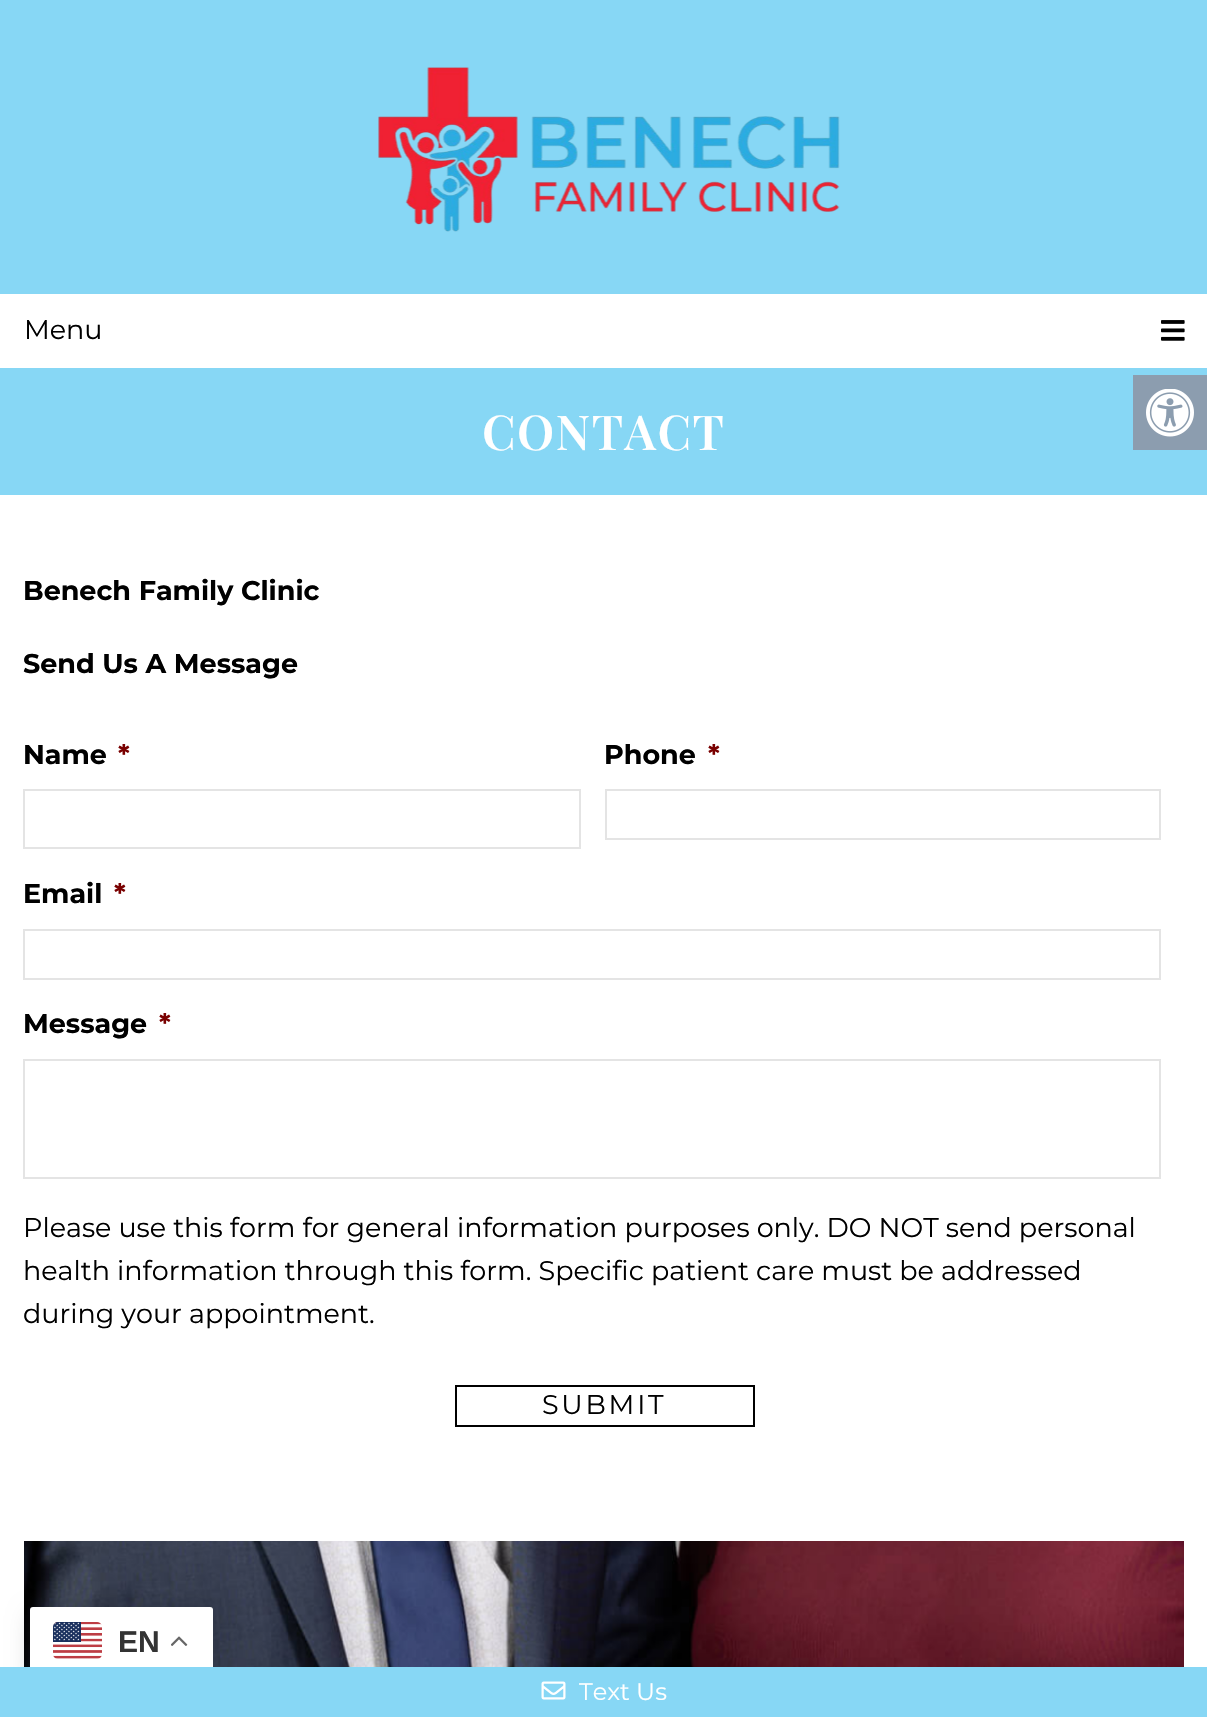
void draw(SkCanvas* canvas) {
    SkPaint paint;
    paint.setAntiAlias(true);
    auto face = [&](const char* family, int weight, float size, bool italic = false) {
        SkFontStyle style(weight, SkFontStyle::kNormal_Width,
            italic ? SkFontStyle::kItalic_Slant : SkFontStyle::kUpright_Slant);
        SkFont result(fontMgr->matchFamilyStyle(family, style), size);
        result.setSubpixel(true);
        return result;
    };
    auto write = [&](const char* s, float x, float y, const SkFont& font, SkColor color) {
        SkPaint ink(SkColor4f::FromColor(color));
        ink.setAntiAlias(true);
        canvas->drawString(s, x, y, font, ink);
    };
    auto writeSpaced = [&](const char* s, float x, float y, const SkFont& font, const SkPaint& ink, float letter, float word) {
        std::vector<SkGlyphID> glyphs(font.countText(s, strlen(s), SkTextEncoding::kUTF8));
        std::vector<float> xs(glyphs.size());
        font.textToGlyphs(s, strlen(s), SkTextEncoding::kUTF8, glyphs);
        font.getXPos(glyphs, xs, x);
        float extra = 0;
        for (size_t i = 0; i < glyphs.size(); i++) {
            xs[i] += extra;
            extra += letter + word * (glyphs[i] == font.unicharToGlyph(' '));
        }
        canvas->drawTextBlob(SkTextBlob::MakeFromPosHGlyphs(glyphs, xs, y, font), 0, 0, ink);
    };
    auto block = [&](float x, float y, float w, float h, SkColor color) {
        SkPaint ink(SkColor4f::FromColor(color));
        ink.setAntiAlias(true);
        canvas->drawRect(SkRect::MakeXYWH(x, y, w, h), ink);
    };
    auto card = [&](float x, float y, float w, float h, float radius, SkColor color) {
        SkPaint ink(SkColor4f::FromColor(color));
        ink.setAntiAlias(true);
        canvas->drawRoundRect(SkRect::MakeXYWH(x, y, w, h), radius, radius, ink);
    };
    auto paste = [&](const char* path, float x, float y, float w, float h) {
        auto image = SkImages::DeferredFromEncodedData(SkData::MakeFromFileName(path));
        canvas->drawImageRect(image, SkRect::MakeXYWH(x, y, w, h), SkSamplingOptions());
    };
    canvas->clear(SK_ColorWHITE);
    block(0, 0, 1207, 294, SkColorSetRGB(135, 215, 245));
    paste("pic1.png", 378, 67, 462, 165);
    auto kFont1 = face("Montserrat", 400, 27);
    write("Menu", 24, 339, kFont1, SK_ColorBLACK);
    paste("pic2.png", 1161, 320, 24, 21);
    block(0, 368, 1207, 127, SkColorSetRGB(135, 215, 245));
    auto kFont2 = face("Playfair Display", 600, 48);
    paint.setColor(SK_ColorWHITE);
    writeSpaced("CONTACT", 482, 450, kFont2, paint, 1.5f, 0);
    auto kFont3 = face("Montserrat", 700, 27);
    write("Benech Family Clinic", 23, 600, kFont3, SK_ColorBLACK);
    write("Send Us A Message", 23, 673, kFont3, SK_ColorBLACK);
    write("Name", 23, 764, kFont3, SK_ColorBLACK);
    write("*", 118, 764, kFont3, SkColorSetRGB(121, 0, 0));
    paint.setStyle(SkPaint::kStroke_Style);
    paint.setStrokeWidth(2);
    paint.setColor(SkColorSetRGB(228, 228, 228));
    canvas->drawRect(SkRect::MakeXYWH(24, 790, 556, 58), paint);
    write("Phone", 604, 764, kFont3, SK_ColorBLACK);
    write("*", 708, 764, kFont3, SkColorSetRGB(121, 0, 0));
    canvas->drawRect(SkRect::MakeXYWH(606, 790, 554, 49), paint);
    write("Email", 23, 903, kFont3, SK_ColorBLACK);
    write("*", 114, 903, kFont3, SkColorSetRGB(121, 0, 0));
    canvas->drawRect(SkRect::MakeXYWH(24, 930, 1136, 49), paint);
    write("Message", 23, 1033, kFont3, SK_ColorBLACK);
    write("*", 159, 1033, kFont3, SkColorSetRGB(121, 0, 0));
    canvas->drawRect(SkRect::MakeXYWH(24, 1060, 1136, 118), paint);
    write("Please use this form for general information purposes only. DO NOT send personal", 23, 1237, kFont1, SK_ColorBLACK);
    write("health information through this form. Specific patient care must be addressed", 23, 1280, kFont1, SK_ColorBLACK);
    write("during your appointment.", 23, 1323, kFont1, SK_ColorBLACK);
    paint.setColor(SK_ColorBLACK);
    canvas->drawRect(SkRect::MakeXYWH(456, 1386, 298, 40), paint);
    paint.setStyle(SkPaint::kFill_Style);
    writeSpaced("SUBMIT", 542, 1414, kFont1, paint, 2.75f, 0);
    block(1133, 375, 74, 75, SkColorSetRGB(140, 157, 175));
    paste("pic3.png", 1146, 389, 48, 48);
    paste("pic4.png", 24, 1541, 1160, 126);
    paint.setColor(SkColorSetARGB(38, 0, 0, 0));
    paint.setMaskFilter(SkMaskFilter::MakeBlur(kNormal_SkBlurStyle, 11));
    canvas->drawRoundRect(SkRect::MakeXYWH(30, 1614, 183, 68), 3, 3, paint);
    paint.setMaskFilter(nullptr);
    card(30, 1607, 183, 67, 3, SK_ColorWHITE);
    paste("pic5.png", 53, 1622, 49, 37);
    auto kFont4 = face("Liberation Sans", 700, 30);
    write("EN", 118, 1652, kFont4, SkColorSetRGB(51, 51, 51));
    paste("pic6.png", 171, 1636, 17, 10);
    block(0, 1667, 1207, 50, SkColorSetRGB(135, 215, 245));
    paste("pic7.png", 541, 1681, 25, 19);
    auto kFont5 = face("Montserrat", 400, 24);
    write("Text Us", 579, 1700, kFont5, SK_ColorWHITE);
}
